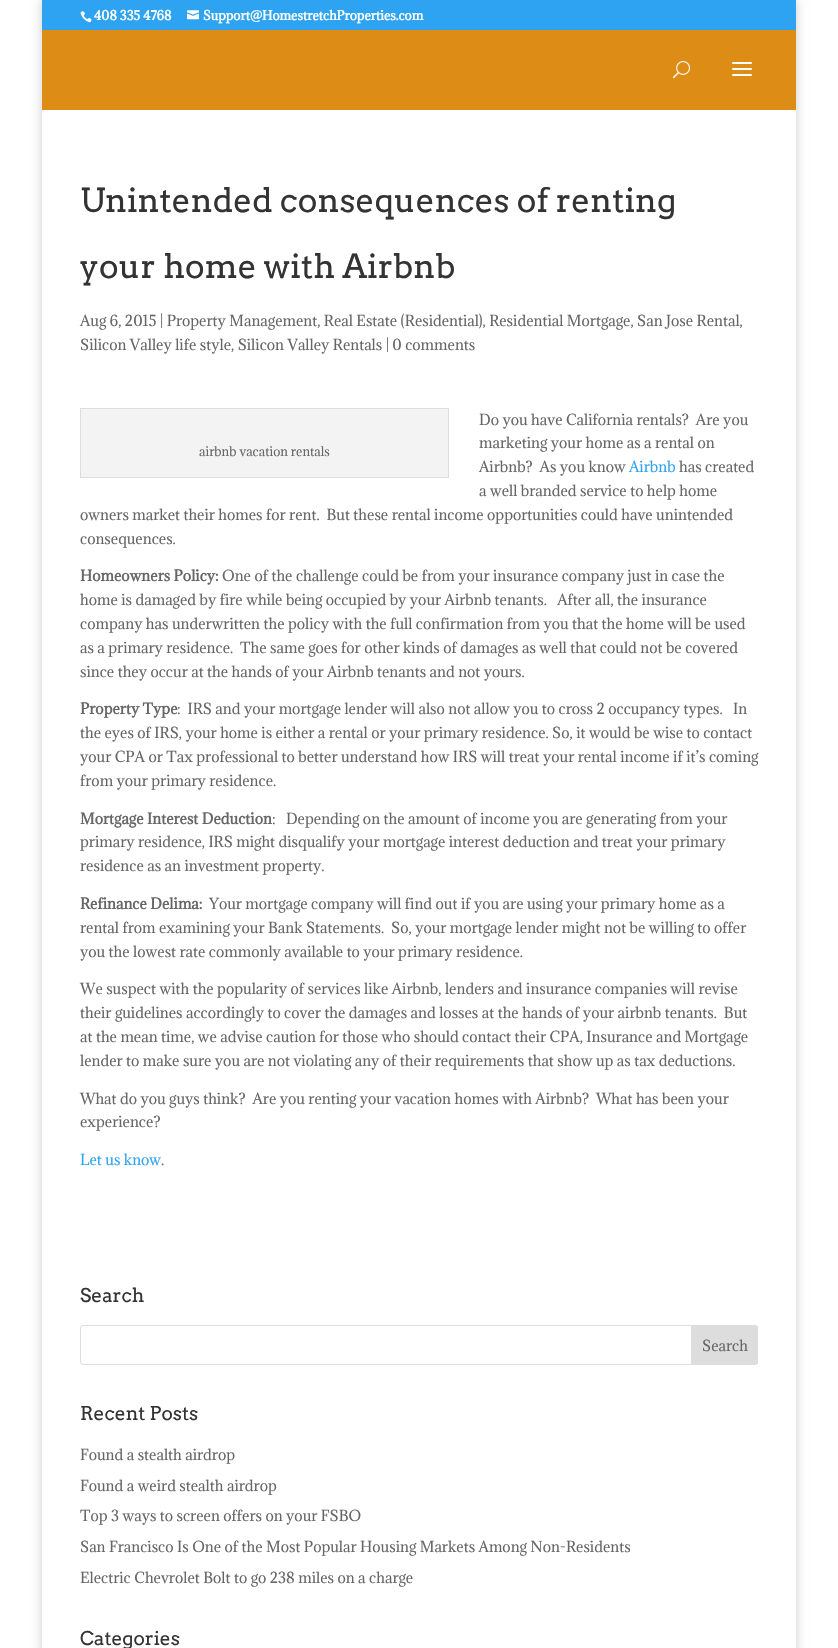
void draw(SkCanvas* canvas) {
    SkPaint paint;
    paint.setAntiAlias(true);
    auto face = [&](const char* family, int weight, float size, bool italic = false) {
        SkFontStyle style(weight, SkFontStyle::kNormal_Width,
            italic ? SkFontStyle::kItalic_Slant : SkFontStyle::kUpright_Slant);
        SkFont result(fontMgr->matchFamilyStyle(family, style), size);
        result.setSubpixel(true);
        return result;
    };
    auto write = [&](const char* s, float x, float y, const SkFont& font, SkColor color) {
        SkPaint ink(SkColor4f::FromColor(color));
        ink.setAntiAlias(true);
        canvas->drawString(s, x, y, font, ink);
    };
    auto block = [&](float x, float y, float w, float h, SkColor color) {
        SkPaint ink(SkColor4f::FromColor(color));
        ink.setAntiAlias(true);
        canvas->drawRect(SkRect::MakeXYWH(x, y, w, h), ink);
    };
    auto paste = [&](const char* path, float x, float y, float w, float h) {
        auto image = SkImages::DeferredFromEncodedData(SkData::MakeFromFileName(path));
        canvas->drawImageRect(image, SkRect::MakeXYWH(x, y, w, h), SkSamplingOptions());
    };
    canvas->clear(SK_ColorWHITE);
    canvas->save();
    canvas->clipPath(SkPathBuilder(SkPathFillType::kEvenOdd).moveTo(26, 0).lineTo(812, 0).lineTo(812, 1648).lineTo(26, 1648).close().moveTo(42, 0).lineTo(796, 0).lineTo(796, 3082).lineTo(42, 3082).close().detach(), true);
    paint.setColor(SkColorSetARGB(51, 0, 0, 0));
    paint.setMaskFilter(SkMaskFilter::MakeBlur(kNormal_SkBlurStyle, 5));
    canvas->drawRect(SkRect::MakeXYWH(42, 0, 754, 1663), paint);
    paint.setMaskFilter(nullptr);
    canvas->restore();
    block(42, 0, 754, 30, SkColorSetRGB(46, 163, 242));
    paste("pic1.png", 80, 11, 12, 12);
    auto kFont1 = face("Adamina", 700, 12);
    write("408 335 4768", 94, 20, kFont1, SK_ColorWHITE);
    paste("pic2.png", 187, 10, 12, 10);
    write("Support@HomestretchProperties.com", 203, 20, kFont1, SK_ColorWHITE);
    block(42, 30, 754, 80, SkColorSetRGB(221, 141, 22));
    paste("pic3.png", 673, 61, 17, 18);
    paste("pic4.png", 732, 62, 20, 14);
    auto kFont2 = face("Arvo", 400, 33);
    write("Unintended consequences of renting", 80, 212, kFont2, SkColorSetRGB(51, 51, 51));
    write("your home with Airbnb", 80, 278, kFont2, SkColorSetRGB(51, 51, 51));
    auto kFont3 = face("Adamina", 400, 14);
    write("Aug 6, 2015 | Property Management, Real Estate (Residential), Residential Mortgage, San Jose Rental,", 80, 326, kFont3, SkColorSetRGB(102, 102, 102));
    write("Silicon Valley life style, Silicon Valley Rentals | 0 comments", 80, 350, kFont3, SkColorSetRGB(102, 102, 102));
    write("Do you have California rentals?  Are you", 479, 425, kFont3, SkColorSetRGB(102, 102, 102));
    write("marketing your home as a rental on", 479, 448, kFont3, SkColorSetRGB(102, 102, 102));
    write("Airbnb?  As you know", 479, 472, kFont3, SkColorSetRGB(102, 102, 102));
    write("Airbnb", 629, 472, kFont3, SkColorSetRGB(46, 163, 242));
    write("has created", 679, 472, kFont3, SkColorSetRGB(102, 102, 102));
    write("a well branded service to help home", 479, 496, kFont3, SkColorSetRGB(102, 102, 102));
    write("owners market their homes for rent.  But these rental income opportunities could have unintended", 80, 520, kFont3, SkColorSetRGB(102, 102, 102));
    write("consequences.", 80, 544, kFont3, SkColorSetRGB(102, 102, 102));
    paint.setColor(SkColorSetRGB(243, 243, 243));
    canvas->drawRect(SkRect::MakeXYWH(80.5f, 408.5f, 368, 69), paint);
    paint.setStyle(SkPaint::kStroke_Style);
    paint.setStrokeWidth(1);
    paint.setColor(SkColorSetRGB(221, 221, 221));
    canvas->drawRect(SkRect::MakeXYWH(80.5f, 408.5f, 368, 69), paint);
    auto kFont4 = face("Adamina", 400, 12);
    write("airbnb vacation rentals", 199, 456, kFont4, SkColorSetRGB(102, 102, 102));
    auto kFont5 = face("Adamina", 700, 14);
    write("Homeowners Policy:", 80, 581, kFont5, SkColorSetRGB(102, 102, 102));
    write("One of the challenge could be from your insurance company just in case the", 222, 581, kFont3, SkColorSetRGB(102, 102, 102));
    write("home is damaged by fire while being occupied by your Airbnb tenants.   After all, the insurance", 80, 605, kFont3, SkColorSetRGB(102, 102, 102));
    write("company has underwritten the policy with the full confirmation from you that the home will be used", 80, 629, kFont3, SkColorSetRGB(102, 102, 102));
    write("as a primary residence.  The same goes for other kinds of damages as well that could not be covered", 80, 653, kFont3, SkColorSetRGB(102, 102, 102));
    write("since they occur at the hands of your Airbnb tenants and not yours.", 80, 677, kFont3, SkColorSetRGB(102, 102, 102));
    write("Property Type", 80, 714, kFont5, SkColorSetRGB(102, 102, 102));
    write(":  IRS and your mortgage lender will also not allow you to cross 2 occupancy types.   In", 177, 714, kFont3, SkColorSetRGB(102, 102, 102));
    write("the eyes of IRS, your home is either a rental or your primary residence. So, it would be wise to contact", 80, 738, kFont3, SkColorSetRGB(102, 102, 102));
    write("your CPA or Tax professional to better understand how IRS will treat your rental income if it’s coming", 80, 762, kFont3, SkColorSetRGB(102, 102, 102));
    write("from your primary residence.", 80, 786, kFont3, SkColorSetRGB(102, 102, 102));
    write("Mortgage Interest Deduction", 80, 824, kFont5, SkColorSetRGB(102, 102, 102));
    write(":   Depending on the amount of income you are generating from your", 272, 824, kFont3, SkColorSetRGB(102, 102, 102));
    write("primary residence, IRS might disqualify your mortgage interest deduction and treat your primary", 80, 847, kFont3, SkColorSetRGB(102, 102, 102));
    write("residence as an investment property.", 80, 871, kFont3, SkColorSetRGB(102, 102, 102));
    write("Refinance Delima:", 80, 909, kFont5, SkColorSetRGB(102, 102, 102));
    write("Your mortgage company will find out if you are using your primary home as a", 209, 909, kFont3, SkColorSetRGB(102, 102, 102));
    write("rental from examining your Bank Statements.  So, your mortgage lender might not be willing to offer", 80, 933, kFont3, SkColorSetRGB(102, 102, 102));
    write("you the lowest rate commonly available to your primary residence.", 80, 957, kFont3, SkColorSetRGB(102, 102, 102));
    write("We suspect with the popularity of services like Airbnb, lenders and insurance companies will revise", 80, 994, kFont3, SkColorSetRGB(102, 102, 102));
    write("their guidelines accordingly to cover the damages and losses at the hands of your airbnb tenants.  But", 80, 1018, kFont3, SkColorSetRGB(102, 102, 102));
    write("at the mean time, we advise caution for those who should contact their CPA, Insurance and Mortgage", 80, 1042, kFont3, SkColorSetRGB(102, 102, 102));
    write("lender to make sure you are not violating any of their requirements that show up as tax deductions.", 80, 1066, kFont3, SkColorSetRGB(102, 102, 102));
    write("What do you guys think?  Are you renting your vacation homes with Airbnb?  What has been your", 80, 1104, kFont3, SkColorSetRGB(102, 102, 102));
    write("experience?", 80, 1127, kFont3, SkColorSetRGB(102, 102, 102));
    write("Let us know", 80, 1165, kFont3, SkColorSetRGB(46, 163, 242));
    write(".", 161, 1165, kFont3, SkColorSetRGB(102, 102, 102));
    auto kFont6 = face("Arvo", 400, 19);
    write("Search", 80, 1302, kFont6, SkColorSetRGB(51, 51, 51));
    canvas->drawRoundRect(SkRect::MakeXYWH(80.5f, 1325.5f, 677, 39), 2.5f, 2.5f, paint);
    paint.setStyle(SkPaint::kFill_Style);
    canvas->drawPath(SkPathBuilder().moveTo(691.5f, 1325.5f).lineTo(755, 1325.5f).cubicTo(756.5f, 1325.5f, 757.5f, 1326.5f, 757.5f, 1328).lineTo(757.5f, 1362).cubicTo(757.5f, 1363.5f, 756.5f, 1364.5f, 755, 1364.5f).lineTo(691.5f, 1364.5f).close().detach(), paint);
    paint.setStyle(SkPaint::kStroke_Style);
    canvas->drawPath(SkPathBuilder().moveTo(691.5f, 1325.5f).lineTo(755, 1325.5f).cubicTo(756.5f, 1325.5f, 757.5f, 1326.5f, 757.5f, 1328).lineTo(757.5f, 1362).cubicTo(757.5f, 1363.5f, 756.5f, 1364.5f, 755, 1364.5f).lineTo(691.5f, 1364.5f).close().detach(), paint);
    write("Search", 702, 1351, kFont3, SkColorSetRGB(102, 102, 102));
    write("Recent Posts", 80, 1420, kFont6, SkColorSetRGB(51, 51, 51));
    write("Found a stealth airdrop", 80, 1460, kFont3, SkColorSetRGB(102, 102, 102));
    write("Found a weird stealth airdrop", 80, 1491, kFont3, SkColorSetRGB(102, 102, 102));
    write("Top 3 ways to screen offers on your FSBO", 80, 1521, kFont3, SkColorSetRGB(102, 102, 102));
    write("San Francisco Is One of the Most Popular Housing Markets Among Non-Residents", 80, 1552, kFont3, SkColorSetRGB(102, 102, 102));
    write("Electric Chevrolet Bolt to go 238 miles on a charge", 80, 1583, kFont3, SkColorSetRGB(102, 102, 102));
    write("Categories", 80, 1645, kFont6, SkColorSetRGB(51, 51, 51));
}
